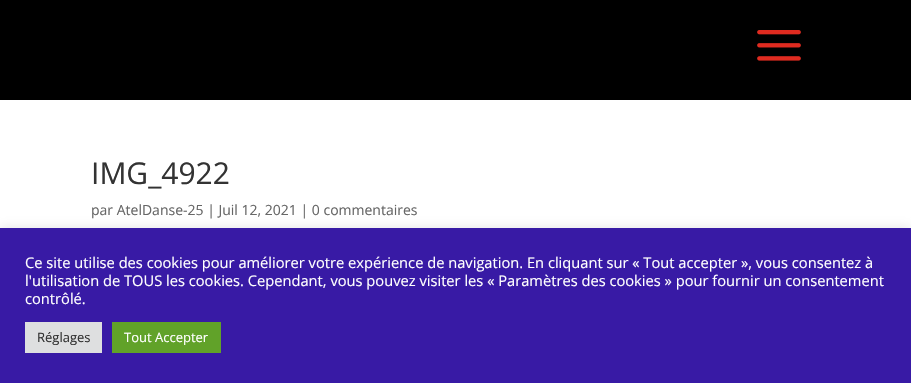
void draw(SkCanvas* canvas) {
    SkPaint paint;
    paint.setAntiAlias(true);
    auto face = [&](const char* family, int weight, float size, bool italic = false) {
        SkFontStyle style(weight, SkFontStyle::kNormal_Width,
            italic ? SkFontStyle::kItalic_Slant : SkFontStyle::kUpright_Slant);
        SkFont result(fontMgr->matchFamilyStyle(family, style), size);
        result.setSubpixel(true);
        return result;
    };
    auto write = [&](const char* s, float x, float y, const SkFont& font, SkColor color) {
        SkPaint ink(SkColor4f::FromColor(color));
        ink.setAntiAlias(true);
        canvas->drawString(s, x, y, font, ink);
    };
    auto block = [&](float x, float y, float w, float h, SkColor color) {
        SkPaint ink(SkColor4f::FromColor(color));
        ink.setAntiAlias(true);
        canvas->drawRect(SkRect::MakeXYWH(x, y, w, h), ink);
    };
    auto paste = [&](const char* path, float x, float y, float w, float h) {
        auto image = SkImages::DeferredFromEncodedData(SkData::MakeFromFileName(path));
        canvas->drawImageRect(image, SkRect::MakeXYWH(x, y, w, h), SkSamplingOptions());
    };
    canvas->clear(SK_ColorWHITE);
    block(0, 0, 911, 100, SK_ColorBLACK);
    paste("pic1.png", 757, 30, 44, 31);
    auto kFont1 = face("Open Sans", 400, 30);
    write("IMG_4922", 91, 184, kFont1, SkColorSetRGB(51, 51, 51));
    auto kFont2 = face("Open Sans", 400, 14);
    write("par AtelDanse-25 | Juil 12, 2021 | 0 commentaires", 91, 215, kFont2, SkColorSetRGB(102, 102, 102));
    paint.setColor(SkColorSetARGB(77, 172, 171, 171));
    paint.setMaskFilter(SkMaskFilter::MakeBlur(kNormal_SkBlurStyle, 5));
    canvas->drawRect(SkRect::MakeXYWH(0, 227, 911, 155), paint);
    paint.setMaskFilter(nullptr);
    block(0, 228, 911, 155, SkColorSetRGB(56, 26, 165));
    auto kFont3 = face("Open Sans", 400, 14.67f);
    write("Ce site utilise des cookies pour améliorer votre expérience de navigation. En cliquant sur « Tout accepter », vous consentez à", 25, 268, kFont3, SK_ColorWHITE);
    write("l'utilisation de TOUS les cookies. Cependant, vous pouvez visiter les « Paramètres des cookies » pour fournir un consentement", 25, 286, kFont3, SK_ColorWHITE);
    write("contrôlé.", 25, 304, kFont3, SK_ColorWHITE);
    block(25, 322, 77, 31, SkColorSetRGB(222, 223, 224));
    auto kFont4 = face("Open Sans", 400, 13);
    write("Réglages", 37, 342, kFont4, SkColorSetRGB(51, 51, 51));
    block(112, 322, 109, 31, SkColorSetRGB(97, 162, 41));
    write("Tout Accepter", 124, 342, kFont4, SK_ColorWHITE);
}
